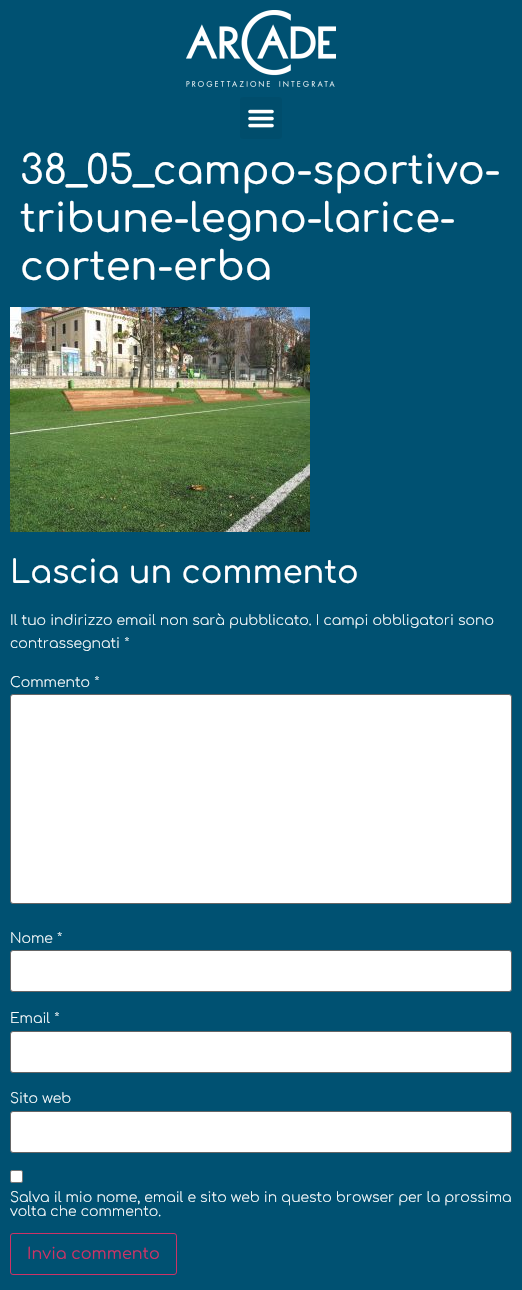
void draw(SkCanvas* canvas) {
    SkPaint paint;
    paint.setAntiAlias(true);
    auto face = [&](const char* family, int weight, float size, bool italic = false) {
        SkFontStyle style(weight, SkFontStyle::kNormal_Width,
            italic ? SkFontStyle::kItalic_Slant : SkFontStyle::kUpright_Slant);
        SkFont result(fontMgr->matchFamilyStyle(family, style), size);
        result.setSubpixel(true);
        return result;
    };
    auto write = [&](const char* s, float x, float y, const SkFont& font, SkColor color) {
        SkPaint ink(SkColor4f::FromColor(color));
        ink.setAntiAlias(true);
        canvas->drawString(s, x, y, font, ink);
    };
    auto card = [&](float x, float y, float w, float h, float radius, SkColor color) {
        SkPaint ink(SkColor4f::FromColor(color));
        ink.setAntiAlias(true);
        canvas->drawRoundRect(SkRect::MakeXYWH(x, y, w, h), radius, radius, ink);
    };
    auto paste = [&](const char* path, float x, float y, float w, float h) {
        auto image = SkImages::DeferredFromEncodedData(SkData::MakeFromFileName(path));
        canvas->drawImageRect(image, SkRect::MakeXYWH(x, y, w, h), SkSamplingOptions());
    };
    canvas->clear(SkColorSetRGB(0, 81, 114));
    paste("pic1.png", 186, 10, 150, 77);
    card(240, 97, 42, 42, 3, SkColorSetRGB(0, 77, 108));
    paste("pic2.png", 248, 109, 26, 19);
    auto kFont1 = face("Comfortaa", 500, 40);
    write("38_05_campo-sportivo-", 20, 184, kFont1, SK_ColorWHITE);
    write("tribune-legno-larice-", 20, 232, kFont1, SK_ColorWHITE);
    write("corten-erba", 20, 280, kFont1, SK_ColorWHITE);
    paste("pic3.png", 10, 307, 300, 225);
    auto kFont2 = face("Comfortaa", 500, 32);
    write("Lascia un commento", 10, 583, kFont2, SK_ColorWHITE);
    auto kFont3 = face("Comfortaa", 300, 14);
    write("Il tuo indirizzo email non sarà pubblicato. I campi obbligatori sono", 10, 625, kFont3, SK_ColorWHITE);
    write("contrassegnati *", 10, 648, kFont3, SK_ColorWHITE);
    write("Commento *", 10, 687, kFont3, SK_ColorWHITE);
    paint.setColor(SK_ColorWHITE);
    canvas->drawRoundRect(SkRect::MakeXYWH(10.5f, 694.5f, 501, 209), 2.5f, 2.5f, paint);
    paint.setStyle(SkPaint::kStroke_Style);
    paint.setStrokeWidth(1);
    paint.setColor(SkColorSetRGB(102, 102, 102));
    canvas->drawRoundRect(SkRect::MakeXYWH(10.5f, 694.5f, 501, 209), 2.5f, 2.5f, paint);
    write("Nome *", 10, 943, kFont3, SK_ColorWHITE);
    paint.setStyle(SkPaint::kFill_Style);
    paint.setColor(SK_ColorWHITE);
    canvas->drawRoundRect(SkRect::MakeXYWH(10.5f, 950.5f, 501, 41), 2.5f, 2.5f, paint);
    paint.setStyle(SkPaint::kStroke_Style);
    paint.setColor(SkColorSetRGB(102, 102, 102));
    canvas->drawRoundRect(SkRect::MakeXYWH(10.5f, 950.5f, 501, 41), 2.5f, 2.5f, paint);
    write("Email *", 10, 1023, kFont3, SK_ColorWHITE);
    paint.setStyle(SkPaint::kFill_Style);
    paint.setColor(SK_ColorWHITE);
    canvas->drawRoundRect(SkRect::MakeXYWH(10.5f, 1031.5f, 501, 41), 2.5f, 2.5f, paint);
    paint.setStyle(SkPaint::kStroke_Style);
    paint.setColor(SkColorSetRGB(102, 102, 102));
    canvas->drawRoundRect(SkRect::MakeXYWH(10.5f, 1031.5f, 501, 41), 2.5f, 2.5f, paint);
    write("Sito web", 10, 1103, kFont3, SK_ColorWHITE);
    paint.setStyle(SkPaint::kFill_Style);
    paint.setColor(SK_ColorWHITE);
    canvas->drawRoundRect(SkRect::MakeXYWH(10.5f, 1111.5f, 501, 41), 2.5f, 2.5f, paint);
    paint.setStyle(SkPaint::kStroke_Style);
    paint.setColor(SkColorSetRGB(102, 102, 102));
    canvas->drawRoundRect(SkRect::MakeXYWH(10.5f, 1111.5f, 501, 41), 2.5f, 2.5f, paint);
    paint.setStyle(SkPaint::kFill_Style);
    paint.setColor(SK_ColorWHITE);
    canvas->drawRoundRect(SkRect::MakeXYWH(10.5f, 1170.5f, 12, 12), 1.5f, 1.5f, paint);
    paint.setStyle(SkPaint::kStroke_Style);
    paint.setColor(SkColorSetRGB(118, 118, 118));
    canvas->drawRoundRect(SkRect::MakeXYWH(10.5f, 1170.5f, 12, 12), 1.5f, 1.5f, paint);
    write("Salva il mio nome, email e sito web in questo browser per la prossima", 10, 1202, kFont3, SK_ColorWHITE);
    write("volta che commento.", 10, 1216, kFont3, SK_ColorWHITE);
    paint.setColor(SkColorSetRGB(204, 51, 102));
    canvas->drawRoundRect(SkRect::MakeXYWH(10.5f, 1233.5f, 166, 41), 2.5f, 2.5f, paint);
    auto kFont4 = face("Comfortaa", 400, 16);
    write("Invia commento", 27, 1259, kFont4, SkColorSetRGB(204, 51, 102));
}
